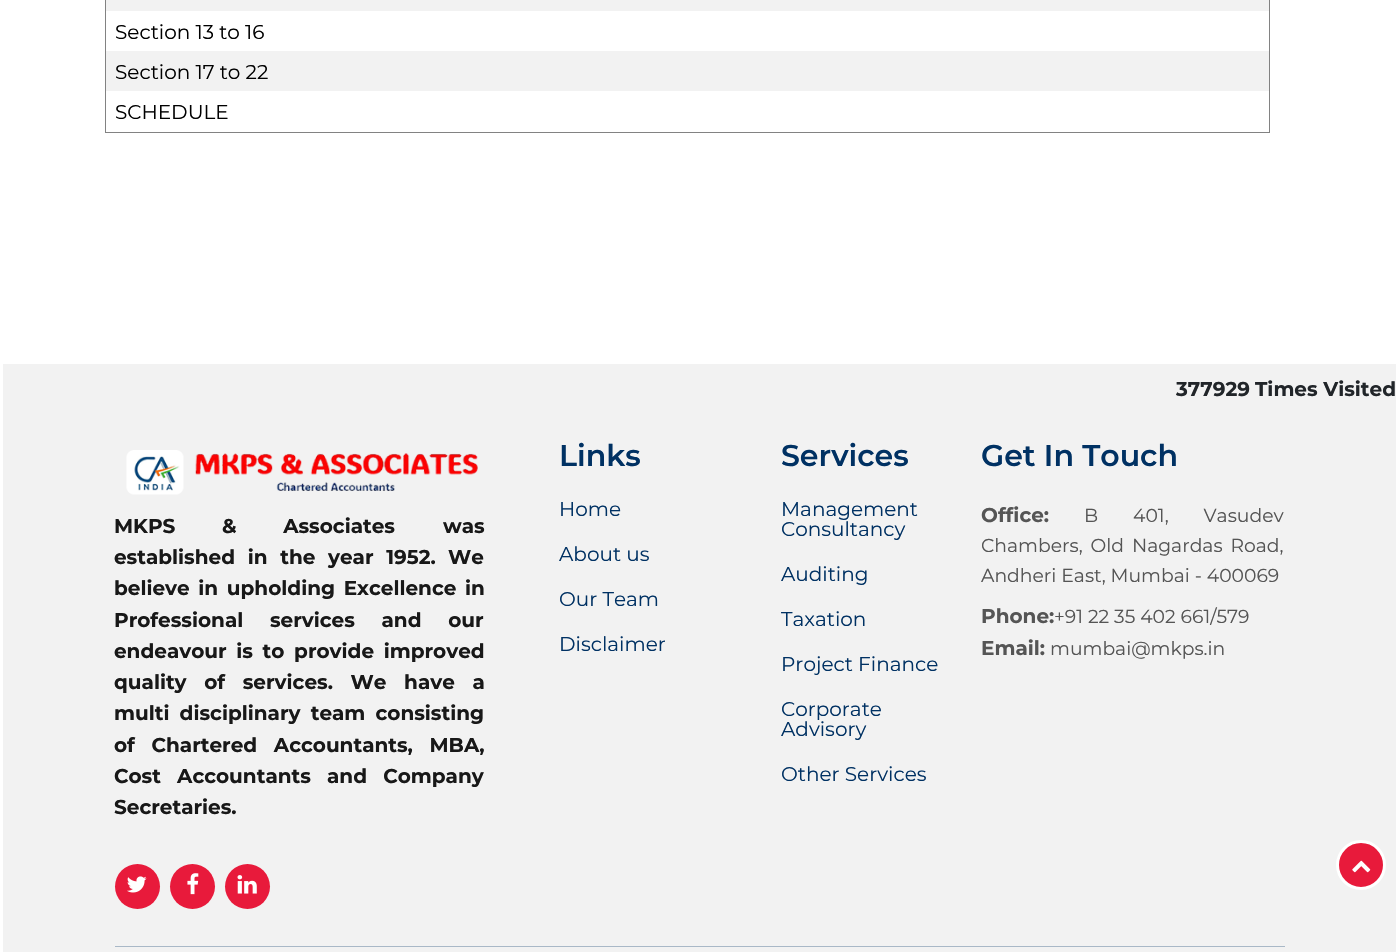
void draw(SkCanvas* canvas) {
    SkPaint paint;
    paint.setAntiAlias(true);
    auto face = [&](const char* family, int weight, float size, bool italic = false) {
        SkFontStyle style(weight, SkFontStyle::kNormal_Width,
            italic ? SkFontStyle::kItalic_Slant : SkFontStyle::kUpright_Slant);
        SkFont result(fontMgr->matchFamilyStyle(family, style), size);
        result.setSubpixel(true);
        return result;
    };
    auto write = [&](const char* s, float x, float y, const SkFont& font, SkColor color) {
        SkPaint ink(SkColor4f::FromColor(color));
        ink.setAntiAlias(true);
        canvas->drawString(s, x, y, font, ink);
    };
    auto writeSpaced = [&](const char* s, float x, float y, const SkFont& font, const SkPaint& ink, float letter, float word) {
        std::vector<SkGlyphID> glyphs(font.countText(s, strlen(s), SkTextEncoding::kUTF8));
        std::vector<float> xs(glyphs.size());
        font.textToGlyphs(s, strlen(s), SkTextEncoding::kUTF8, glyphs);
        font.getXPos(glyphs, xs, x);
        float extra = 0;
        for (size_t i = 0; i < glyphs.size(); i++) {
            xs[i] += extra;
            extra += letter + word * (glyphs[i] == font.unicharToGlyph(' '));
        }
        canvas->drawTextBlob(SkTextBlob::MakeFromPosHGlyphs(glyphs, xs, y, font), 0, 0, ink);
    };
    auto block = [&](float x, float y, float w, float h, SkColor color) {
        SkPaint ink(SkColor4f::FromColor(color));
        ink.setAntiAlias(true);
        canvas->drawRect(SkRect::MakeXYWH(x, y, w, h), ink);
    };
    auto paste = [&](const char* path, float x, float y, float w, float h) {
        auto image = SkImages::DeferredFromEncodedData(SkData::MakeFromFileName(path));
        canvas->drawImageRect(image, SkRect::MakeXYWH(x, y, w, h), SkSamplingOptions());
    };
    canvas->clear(SK_ColorWHITE);
    paint.setStyle(SkPaint::kStroke_Style);
    paint.setStrokeWidth(1);
    paint.setColor(SkColorSetRGB(130, 130, 130));
    canvas->drawRect(SkRect::MakeXYWH(105.5f, -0.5f, 1164, 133), paint);
    block(106, 0, 1163, 11, SkColorSetRGB(242, 242, 242));
    auto kFont1 = face("Montserrat", 400, 20);
    write("Section 13 to 16", 115, 39, kFont1, SK_ColorBLACK);
    block(106, 51, 1163, 40, SkColorSetRGB(242, 242, 242));
    write("Section 17 to 22", 115, 79, kFont1, SK_ColorBLACK);
    write("SCHEDULE", 115, 119, kFont1, SK_ColorBLACK);
    block(3, 364, 1393, 588, SkColorSetRGB(242, 242, 242));
    auto kFont2 = face("Montserrat", 700, 20);
    write("377929", 1176, 396, kFont2, SkColorSetRGB(33, 37, 41));
    write("Times Visited", 1255, 396, kFont2, SkColorSetRGB(33, 37, 41));
    paste("pic1.png", 126, 450, 352, 45);
    paint.setStyle(SkPaint::kFill_Style);
    paint.setColor(SkColorSetRGB(24, 24, 24));
    writeSpaced("MKPS & Associates", 114, 533, kFont2, paint, 0, 41);
    write("was", 443, 533, kFont2, SkColorSetRGB(24, 24, 24));
    writeSpaced("established in the year 1952.", 114, 564, kFont2, paint, 0, 7);
    write("We", 448, 564, kFont2, SkColorSetRGB(24, 24, 24));
    writeSpaced("believe in upholding Excellence in", 114, 595, kFont2, paint, 0, 3);
    writeSpaced("Professional services and our", 114, 627, kFont2, paint, 0, 21);
    writeSpaced("endeavour is to provide improved", 114, 658, kFont2, paint, 0, 4);
    writeSpaced("quality of services. We have a", 114, 689, kFont2, paint, 0, 12);
    writeSpaced("multi disciplinary team consisting", 114, 720, kFont2, paint, 0, 4.5f);
    writeSpaced("of Chartered Accountants, MBA,", 114, 752, kFont2, paint, 0, 11);
    writeSpaced("Cost Accountants and Company", 114, 783, kFont2, paint, 0, 10.5f);
    write("Secretaries.", 114, 814, kFont2, SkColorSetRGB(24, 24, 24));
    paint.setColor(SkColorSetRGB(232, 26, 59));
    canvas->drawCircle(137.5f, 886.5f, 22.5f, paint);
    paste("pic2.png", 127, 876, 20, 17);
    canvas->drawCircle(192.5f, 886.5f, 22.5f, paint);
    paste("pic3.png", 187, 873, 12, 22);
    canvas->drawCircle(247.5f, 886.5f, 22.5f, paint);
    paste("pic4.png", 237, 875, 20, 19);
    auto kFont3 = face("Montserrat", 600, 30);
    write("Links", 559, 466, kFont3, SkColorSetRGB(0, 49, 99));
    write("Home", 559, 516, kFont1, SkColorSetRGB(0, 49, 99));
    write("About us", 559, 561, kFont1, SkColorSetRGB(0, 49, 99));
    write("Our Team", 559, 606, kFont1, SkColorSetRGB(0, 49, 99));
    write("Disclaimer", 559, 651, kFont1, SkColorSetRGB(0, 49, 99));
    write("Services", 781, 466, kFont3, SkColorSetRGB(0, 49, 99));
    write("Management", 781, 516, kFont1, SkColorSetRGB(0, 49, 99));
    write("Consultancy", 781, 536, kFont1, SkColorSetRGB(0, 49, 99));
    write("Auditing", 781, 581, kFont1, SkColorSetRGB(0, 49, 99));
    write("Taxation", 781, 626, kFont1, SkColorSetRGB(0, 49, 99));
    write("Project Finance", 781, 671, kFont1, SkColorSetRGB(0, 49, 99));
    write("Corporate", 781, 716, kFont1, SkColorSetRGB(0, 49, 99));
    write("Advisory", 781, 736, kFont1, SkColorSetRGB(0, 49, 99));
    write("Other Services", 781, 781, kFont1, SkColorSetRGB(0, 49, 99));
    write("Get In Touch", 981, 466, kFont3, SkColorSetRGB(0, 49, 99));
    write("Office:", 981, 522, kFont2, SkColorSetRGB(85, 85, 85));
    auto kFont4 = face("Montserrat", 400, 18.75f);
    paint.setColor(SkColorSetRGB(85, 85, 85));
    writeSpaced("B 401, Vasudev", 1084, 522, kFont4, paint, 0, 30);
    writeSpaced("Chambers, Old Nagardas Road,", 981, 552, kFont4, paint, 0, 3);
    write("Andheri East, Mumbai - 400069", 981, 582, kFont4, SkColorSetRGB(85, 85, 85));
    write("Phone:", 981, 623, kFont2, SkColorSetRGB(85, 85, 85));
    write("+91 22 35 402 661/579", 1054, 623, kFont4, SkColorSetRGB(85, 85, 85));
    write("Email:", 981, 655, kFont2, SkColorSetRGB(85, 85, 85));
    write("mumbai@mkps.in", 1050, 655, kFont4, SkColorSetRGB(85, 85, 85));
    block(115, 946, 1170, 1, SkColorSetRGB(169, 184, 199));
    paint.setColor(SkColorSetRGB(232, 26, 59));
    canvas->drawCircle(1361, 865, 23.5f, paint);
    paint.setStyle(SkPaint::kStroke_Style);
    paint.setStrokeWidth(3);
    paint.setColor(SK_ColorWHITE);
    canvas->drawCircle(1361, 865, 23.5f, paint);
    paste("pic5.png", 1352, 860, 19, 13);
}
